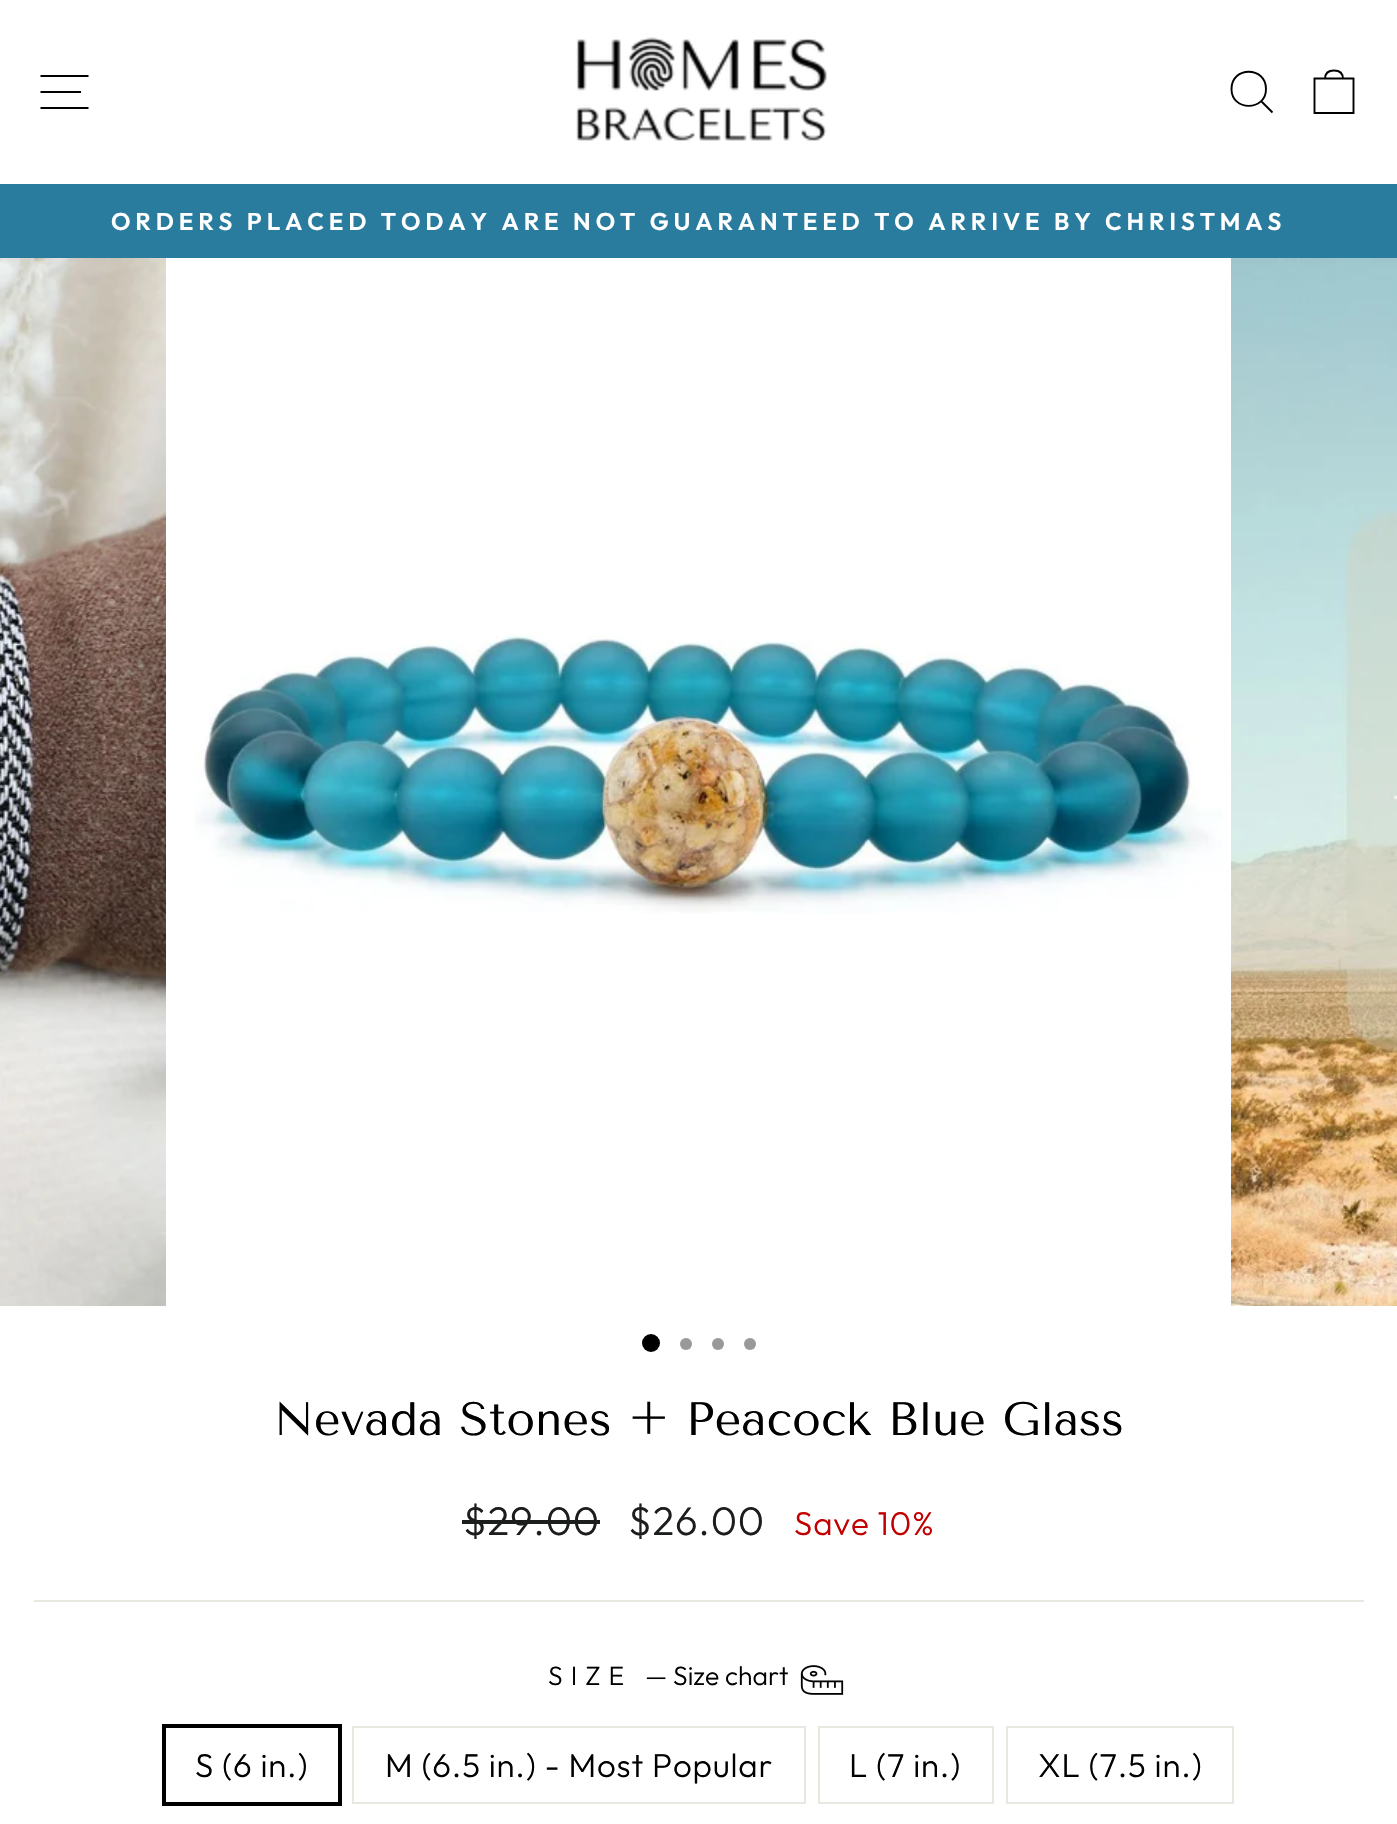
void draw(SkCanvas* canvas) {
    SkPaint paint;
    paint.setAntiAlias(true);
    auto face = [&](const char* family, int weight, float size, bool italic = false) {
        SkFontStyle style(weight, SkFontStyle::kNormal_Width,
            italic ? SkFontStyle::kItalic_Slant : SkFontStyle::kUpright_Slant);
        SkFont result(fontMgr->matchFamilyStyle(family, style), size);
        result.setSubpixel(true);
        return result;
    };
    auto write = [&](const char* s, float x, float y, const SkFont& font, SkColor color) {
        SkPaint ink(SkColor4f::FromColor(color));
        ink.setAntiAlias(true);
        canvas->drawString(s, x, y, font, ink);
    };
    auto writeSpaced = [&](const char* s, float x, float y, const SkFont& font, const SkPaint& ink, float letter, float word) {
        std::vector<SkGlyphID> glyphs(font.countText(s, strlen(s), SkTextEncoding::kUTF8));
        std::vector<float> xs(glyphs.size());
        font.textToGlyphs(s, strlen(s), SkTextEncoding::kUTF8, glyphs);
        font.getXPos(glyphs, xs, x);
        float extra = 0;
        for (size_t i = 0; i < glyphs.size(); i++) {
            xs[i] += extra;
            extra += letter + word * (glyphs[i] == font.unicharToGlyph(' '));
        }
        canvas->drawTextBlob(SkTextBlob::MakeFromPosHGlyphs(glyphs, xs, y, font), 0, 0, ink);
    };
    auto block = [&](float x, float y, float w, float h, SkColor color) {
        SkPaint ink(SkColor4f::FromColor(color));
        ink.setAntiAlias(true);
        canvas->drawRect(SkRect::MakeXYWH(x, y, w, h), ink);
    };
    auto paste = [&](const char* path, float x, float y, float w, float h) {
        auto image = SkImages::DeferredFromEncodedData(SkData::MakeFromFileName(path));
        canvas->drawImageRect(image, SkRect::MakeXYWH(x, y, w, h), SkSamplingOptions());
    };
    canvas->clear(SK_ColorWHITE);
    paint.setStyle(SkPaint::kStroke_Style);
    paint.setStrokeWidth(1.9f);
    paint.setColor(SK_ColorBLACK);
    canvas->drawPath(SkPathBuilder().moveTo(40.5f, 76).lineTo(88.5f, 76).moveTo(40.5f, 92).lineTo(81, 92).moveTo(40.5f, 108).lineTo(88.5f, 108).detach(), paint);
    paste("pic1.png", 576, 37, 251, 104);
    canvas->drawPath(SkPathBuilder().moveTo(1266, 89).cubicTo(1266, 111.5f, 1231.5f, 111.5f, 1231.5f, 89).cubicTo(1231.5f, 66, 1266, 66, 1266, 89).close().moveTo(1272.5f, 112.5f).lineTo(1261.5f, 101.5f).detach(), paint);
    canvas->drawPath(SkPathBuilder().moveTo(1314.5f, 78.5f).lineTo(1353.5f, 78.5f).lineTo(1353.5f, 113).lineTo(1314.5f, 113).close().moveTo(1325, 79).cubicTo(1325, 72, 1329, 70.5f, 1334, 70.5f).cubicTo(1339, 70.5f, 1343, 72, 1343, 79).detach(), paint);
    block(0, 184, 1397, 74, SkColorSetRGB(41, 124, 157));
    auto kFont1 = face("Outfit", 600, 24.3f);
    paint.setStyle(SkPaint::kFill_Style);
    paint.setColor(SK_ColorWHITE);
    writeSpaced("ORDERS PLACED TODAY ARE NOT GUARANTEED TO ARRIVE BY CHRISTMAS", 111, 230, kFont1, paint, 4.85f, 0);
    paste("pic2.png", 0, 258, 166, 1048);
    paste("pic3.png", 194, 634, 1029, 280);
    paste("pic4.png", 1231, 258, 166, 1048);
    paint.setColor(SK_ColorBLACK);
    canvas->drawCircle(651, 1343, 9, paint);
    paint.setColor(SkColorSetRGB(153, 153, 153));
    canvas->drawCircle(686, 1344, 6, paint);
    canvas->drawCircle(718, 1344, 6, paint);
    canvas->drawCircle(750, 1344, 6, paint);
    auto kFont2 = face("Tenor Sans", 400, 46.75f);
    write("Nevada Stones + Peacock Blue Glass", 274, 1435, kFont2, SK_ColorBLACK);
    auto kFont3 = face("Outfit", 300, 40);
    paint.setColor(SkColorSetRGB(28, 29, 29));
    writeSpaced("$29.00", 463, 1535, kFont3, paint, 0.8f, 0);
    block(462, 1520, 138, 4, SkColorSetRGB(28, 29, 29));
    writeSpaced("$26.00", 628, 1535, kFont3, paint, 0.8f, 0);
    auto kFont4 = face("Outfit", 300, 33.1f);
    paint.setColor(SkColorSetRGB(194, 0, 0));
    writeSpaced("Save 10%", 794, 1535, kFont4, paint, 0.8f, 0);
    block(34, 1600, 1330, 2, SkColorSetRGB(232, 232, 225));
    auto kFont5 = face("Outfit", 300, 26.5f);
    paint.setColor(SK_ColorBLACK);
    writeSpaced("SIZE", 548, 1685, kFont5, paint, 8, 0);
    write("— Size chart", 645, 1685, kFont5, SK_ColorBLACK);
    paste("pic5.png", 800, 1665, 44, 30);
    paint.setStyle(SkPaint::kStroke_Style);
    paint.setStrokeWidth(4);
    canvas->drawRect(SkRect::MakeXYWH(164, 1726, 176, 78), paint);
    paint.setStyle(SkPaint::kFill_Style);
    writeSpaced("S (6 in.)", 195, 1777, kFont4, paint, 0.8f, 0);
    paint.setStyle(SkPaint::kStroke_Style);
    paint.setStrokeWidth(2);
    paint.setColor(SkColorSetRGB(232, 232, 225));
    canvas->drawRect(SkRect::MakeXYWH(353, 1727, 452, 76), paint);
    paint.setStyle(SkPaint::kFill_Style);
    paint.setColor(SK_ColorBLACK);
    writeSpaced("M (6.5 in.) - Most Popular", 385, 1777, kFont4, paint, 0.8f, 0);
    paint.setStyle(SkPaint::kStroke_Style);
    paint.setColor(SkColorSetRGB(232, 232, 225));
    canvas->drawRect(SkRect::MakeXYWH(819, 1727, 174, 76), paint);
    paint.setStyle(SkPaint::kFill_Style);
    paint.setColor(SK_ColorBLACK);
    writeSpaced("L (7 in.)", 849, 1777, kFont4, paint, 0.8f, 0);
    paint.setStyle(SkPaint::kStroke_Style);
    paint.setColor(SkColorSetRGB(232, 232, 225));
    canvas->drawRect(SkRect::MakeXYWH(1007, 1727, 226, 76), paint);
    paint.setStyle(SkPaint::kFill_Style);
    paint.setColor(SK_ColorBLACK);
    writeSpaced("XL (7.5 in.)", 1038, 1777, kFont4, paint, 0.8f, 0);
}
